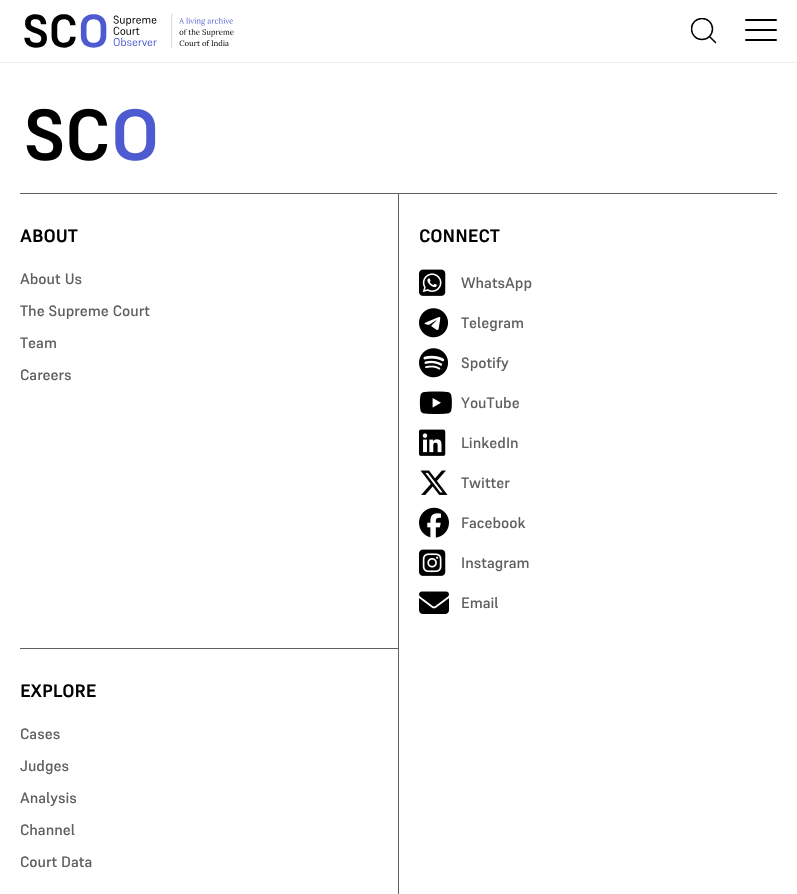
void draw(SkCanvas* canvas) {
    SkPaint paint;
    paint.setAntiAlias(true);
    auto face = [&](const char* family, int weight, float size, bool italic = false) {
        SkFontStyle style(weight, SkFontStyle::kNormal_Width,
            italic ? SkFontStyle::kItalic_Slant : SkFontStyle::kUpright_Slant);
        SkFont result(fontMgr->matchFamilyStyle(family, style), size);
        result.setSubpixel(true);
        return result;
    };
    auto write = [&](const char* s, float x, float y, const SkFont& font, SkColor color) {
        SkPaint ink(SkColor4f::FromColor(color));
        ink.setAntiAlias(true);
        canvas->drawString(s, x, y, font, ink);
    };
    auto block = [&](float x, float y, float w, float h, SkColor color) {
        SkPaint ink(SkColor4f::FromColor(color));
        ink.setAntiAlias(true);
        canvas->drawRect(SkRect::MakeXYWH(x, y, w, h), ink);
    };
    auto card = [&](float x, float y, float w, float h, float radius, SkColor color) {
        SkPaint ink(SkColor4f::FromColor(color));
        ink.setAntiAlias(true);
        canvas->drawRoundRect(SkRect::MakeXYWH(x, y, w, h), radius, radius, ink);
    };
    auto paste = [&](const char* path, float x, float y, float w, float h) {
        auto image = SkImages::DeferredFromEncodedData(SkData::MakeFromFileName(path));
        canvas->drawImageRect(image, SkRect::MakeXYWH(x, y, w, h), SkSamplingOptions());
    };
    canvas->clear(SK_ColorWHITE);
    block(0, 62, 797, 1, SkColorSetRGB(237, 237, 237));
    paste("pic1.png", 24, 14, 210, 34);
    canvas->save();
    canvas->clipRect(SkRect::MakeXYWH(691, 18, 26, 26));
    paint.setStyle(SkPaint::kStroke_Style);
    paint.setStrokeWidth(1.5f);
    paint.setColor(SK_ColorBLACK);
    canvas->drawCircle(702, 29, 10.5f, paint);
    canvas->restore();
    paint.setStrokeCap(SkPaint::kRound_Cap);
    canvas->drawPath(SkPathBuilder().moveTo(709.5f, 36.5f).lineTo(715.5f, 42.5f).detach(), paint);
    card(745, 29, 32, 2, 1, SK_ColorBLACK);
    card(745, 19, 32, 2, 1, SK_ColorBLACK);
    card(745, 39, 32, 2, 1, SK_ColorBLACK);
    paste("pic2.png", 26, 108, 130, 53);
    block(20, 193, 757, 1, SkColorSetRGB(95, 95, 95));
    block(398, 193, 1, 455, SkColorSetRGB(95, 95, 95));
    auto kFont1 = face("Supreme", 700, 18);
    write("ABOUT", 20, 242, kFont1, SK_ColorBLACK);
    auto kFont2 = face("Supreme", 500, 15);
    write("About Us", 20, 284, kFont2, SkColorSetRGB(95, 95, 95));
    write("The Supreme Court", 20, 316, kFont2, SkColorSetRGB(95, 95, 95));
    write("Team", 20, 348, kFont2, SkColorSetRGB(95, 95, 95));
    write("Careers", 20, 380, kFont2, SkColorSetRGB(95, 95, 95));
    write("CONNECT", 419, 242, kFont1, SK_ColorBLACK);
    paste("pic3.png", 419, 269, 27, 27);
    write("WhatsApp", 461, 288, kFont2, SkColorSetRGB(95, 95, 95));
    paste("pic4.png", 419, 308, 30, 30);
    write("Telegram", 461, 328, kFont2, SkColorSetRGB(95, 95, 95));
    paste("pic5.png", 419, 348, 30, 30);
    write("Spotify", 461, 368, kFont2, SkColorSetRGB(95, 95, 95));
    paste("pic6.png", 419, 391, 33, 23);
    write("YouTube", 461, 408, kFont2, SkColorSetRGB(95, 95, 95));
    paste("pic7.png", 419, 429, 27, 27);
    write("LinkedIn", 461, 448, kFont2, SkColorSetRGB(95, 95, 95));
    paste("pic8.png", 420, 470, 28, 25);
    write("Twitter", 461, 488, kFont2, SkColorSetRGB(95, 95, 95));
    paste("pic9.png", 419, 507, 30, 31);
    write("Facebook", 461, 528, kFont2, SkColorSetRGB(95, 95, 95));
    paste("pic10.png", 419, 549, 27, 27);
    write("Instagram", 461, 568, kFont2, SkColorSetRGB(95, 95, 95));
    paste("pic11.png", 419, 591, 30, 23);
    write("Email", 461, 608, kFont2, SkColorSetRGB(95, 95, 95));
    block(20, 648, 379, 1, SkColorSetRGB(95, 95, 95));
    block(398, 648, 1, 246, SkColorSetRGB(95, 95, 95));
    write("EXPLORE", 20, 697, kFont1, SK_ColorBLACK);
    write("Cases", 20, 739, kFont2, SkColorSetRGB(95, 95, 95));
    write("Judges", 20, 771, kFont2, SkColorSetRGB(95, 95, 95));
    write("Analysis", 20, 803, kFont2, SkColorSetRGB(95, 95, 95));
    write("Channel", 20, 835, kFont2, SkColorSetRGB(95, 95, 95));
    write("Court Data", 20, 867, kFont2, SkColorSetRGB(95, 95, 95));
}
